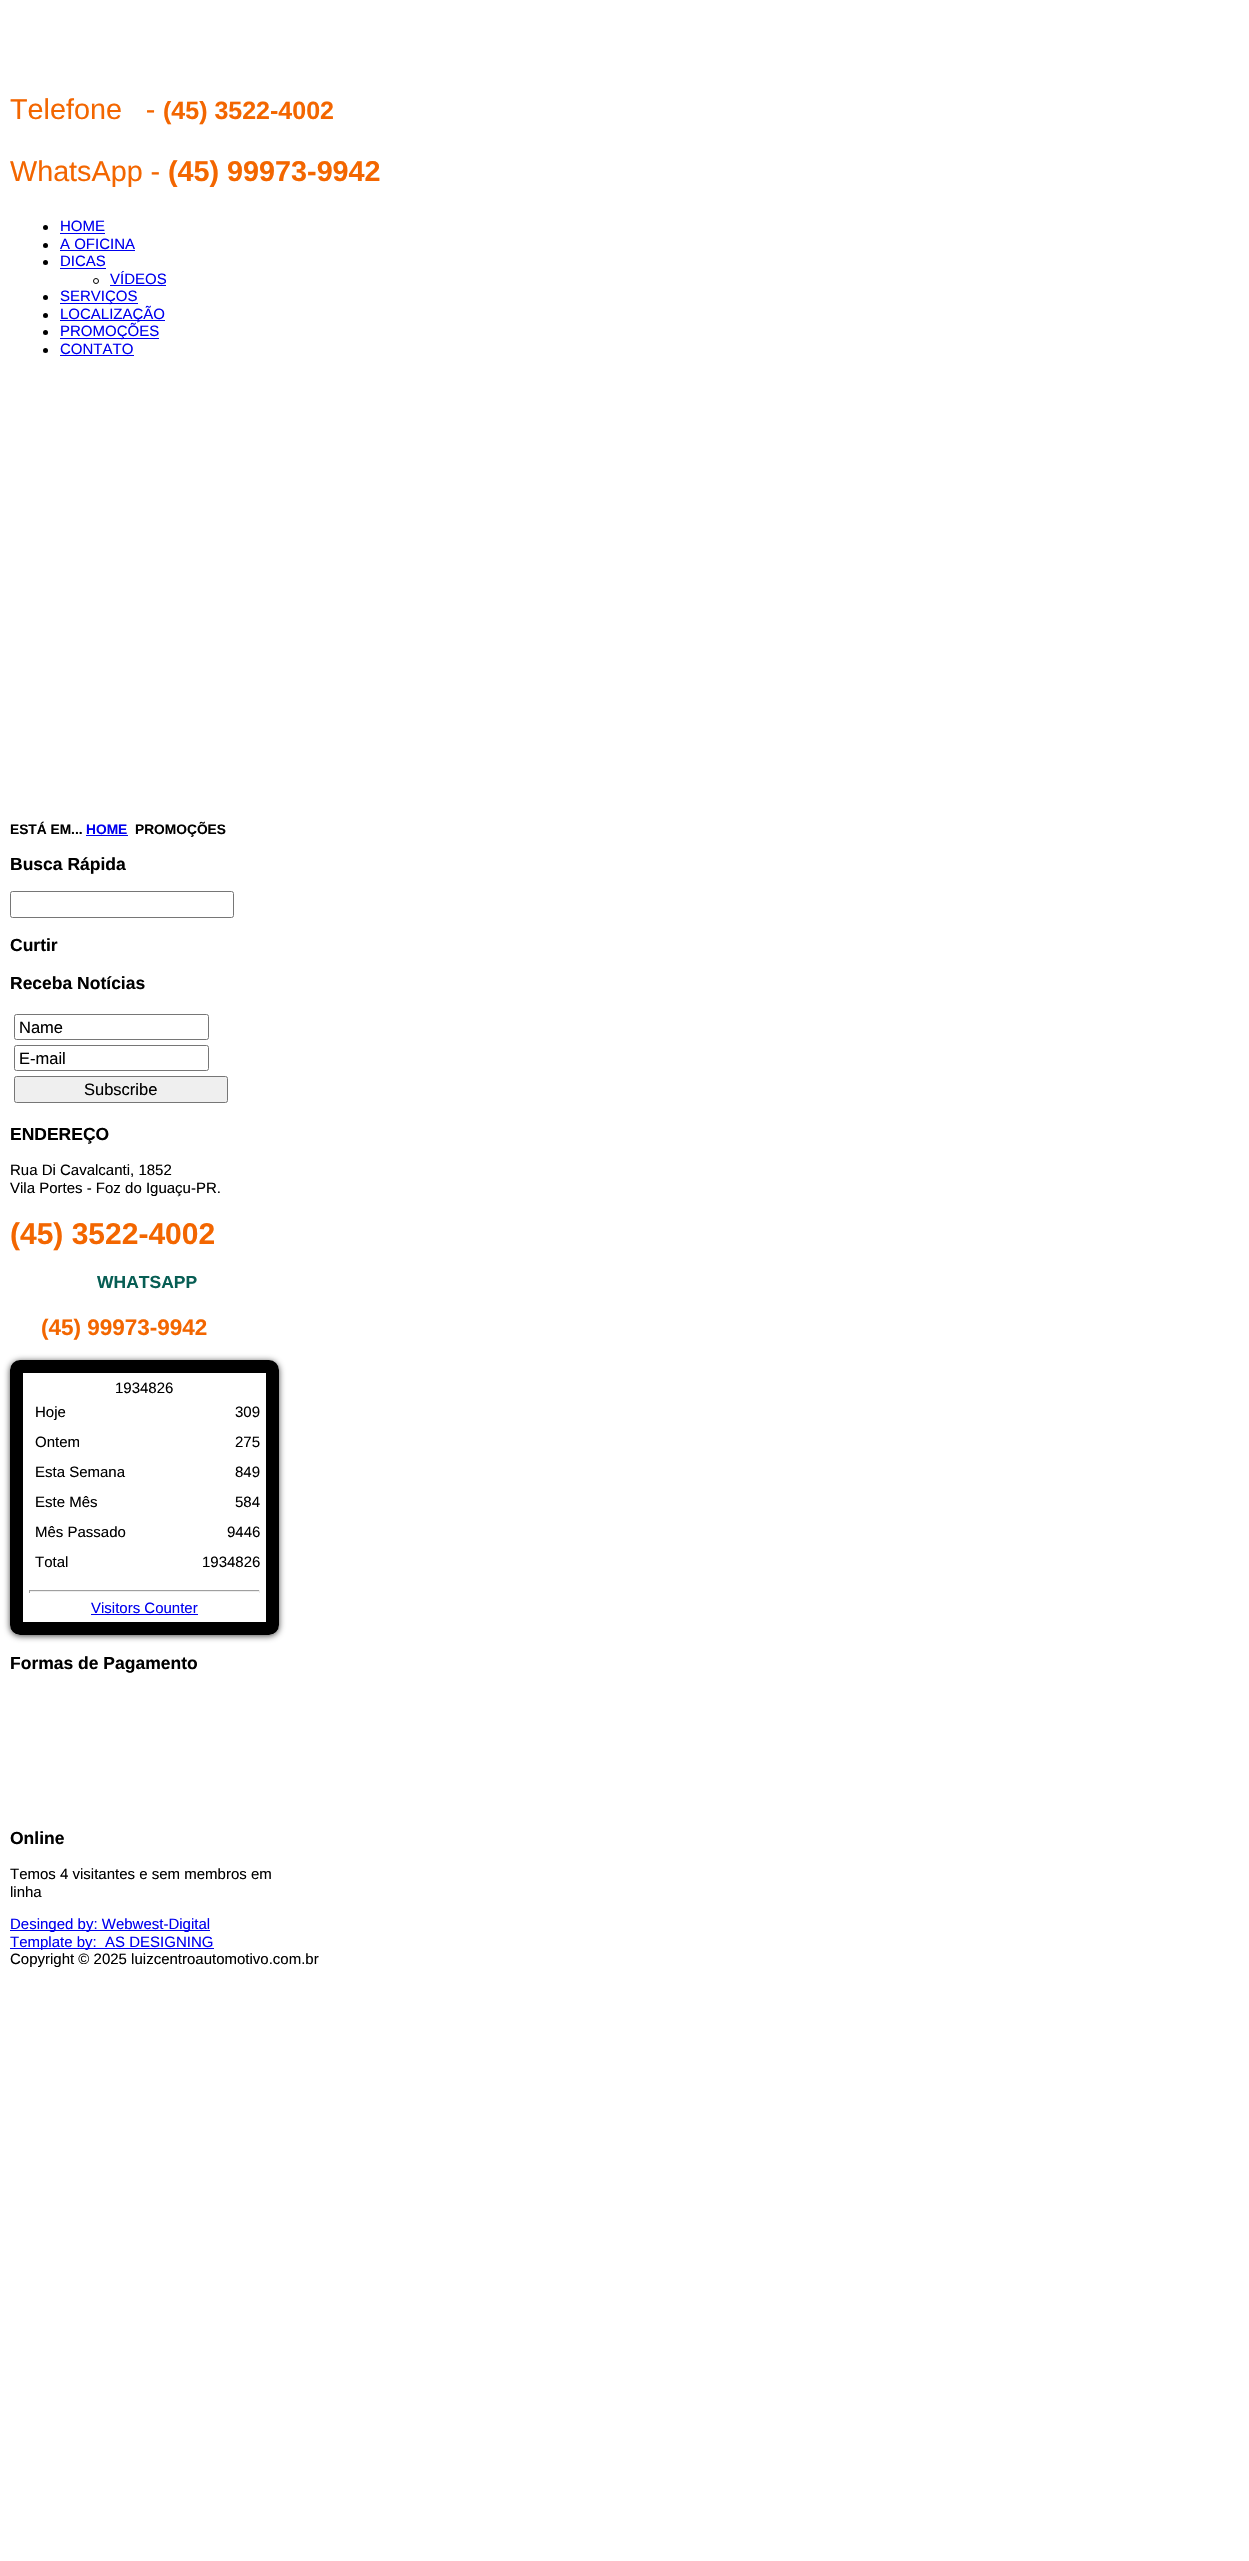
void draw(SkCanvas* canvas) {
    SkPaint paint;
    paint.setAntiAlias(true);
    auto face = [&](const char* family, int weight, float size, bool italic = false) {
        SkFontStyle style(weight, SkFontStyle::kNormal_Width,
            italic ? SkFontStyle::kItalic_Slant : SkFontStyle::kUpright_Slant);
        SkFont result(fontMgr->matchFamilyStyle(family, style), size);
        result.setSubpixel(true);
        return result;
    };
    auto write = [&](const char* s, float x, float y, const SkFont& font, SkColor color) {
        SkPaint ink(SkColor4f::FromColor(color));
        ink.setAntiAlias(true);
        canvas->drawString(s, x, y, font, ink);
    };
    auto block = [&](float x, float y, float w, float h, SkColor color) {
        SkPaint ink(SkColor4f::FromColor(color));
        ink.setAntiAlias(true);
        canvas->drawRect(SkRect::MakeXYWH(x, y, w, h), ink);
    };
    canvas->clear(SK_ColorWHITE);
    auto kFont1 = face("Liberation Sans", 400, 28.75f);
    write("Telefone   -", 10, 119, kFont1, SkColorSetRGB(243, 102, 0));
    auto kFont2 = face("Liberation Sans", 700, 25);
    write("(45) 3522-4002", 163, 119, kFont2, SkColorSetRGB(243, 102, 0));
    write("WhatsApp -", 10, 181, kFont1, SkColorSetRGB(243, 102, 0));
    auto kFont3 = face("Liberation Sans", 700, 28.75f);
    write("(45) 99973-9942", 168, 181, kFont3, SkColorSetRGB(243, 102, 0));
    paint.setColor(SK_ColorBLACK);
    canvas->drawCircle(45.5f, 227.5f, 2.5f, paint);
    auto kFont4 = face("Liberation Sans", 400, 15);
    write("HOME", 60, 231, kFont4, SkColorSetRGB(0, 0, 238));
    block(60, 233, 45, 1, SkColorSetRGB(0, 0, 238));
    canvas->drawCircle(45.5f, 245.5f, 2.5f, paint);
    write("A OFICINA", 60, 249, kFont4, SkColorSetRGB(0, 0, 238));
    block(60, 250, 75, 1, SkColorSetRGB(0, 0, 238));
    canvas->drawCircle(45.5f, 262.5f, 2.5f, paint);
    write("DICAS", 60, 266, kFont4, SkColorSetRGB(0, 0, 238));
    block(60, 268, 46, 1, SkColorSetRGB(0, 0, 238));
    paint.setStyle(SkPaint::kStroke_Style);
    paint.setStrokeWidth(1);
    canvas->drawCircle(96, 281, 2.5f, paint);
    write("VÍDEOS", 110, 284, kFont4, SkColorSetRGB(0, 0, 238));
    block(110, 285, 56, 1, SkColorSetRGB(0, 0, 238));
    paint.setStyle(SkPaint::kFill_Style);
    canvas->drawCircle(45.5f, 297.5f, 2.5f, paint);
    block(60, 303, 78, 1, SkColorSetRGB(0, 0, 238));
    write("SERVIÇOS", 60, 301, kFont4, SkColorSetRGB(0, 0, 238));
    canvas->drawCircle(45.5f, 315.5f, 2.5f, paint);
    block(60, 320, 105, 1, SkColorSetRGB(0, 0, 238));
    write("LOCALIZAÇÃO", 60, 319, kFont4, SkColorSetRGB(0, 0, 238));
    canvas->drawCircle(45.5f, 332.5f, 2.5f, paint);
    block(60, 338, 99, 1, SkColorSetRGB(0, 0, 238));
    write("PROMOÇÕES", 60, 336, kFont4, SkColorSetRGB(0, 0, 238));
    canvas->drawCircle(45.5f, 350.5f, 2.5f, paint);
    write("CONTATO", 60, 354, kFont4, SkColorSetRGB(0, 0, 238));
    block(60, 355, 74, 1, SkColorSetRGB(0, 0, 238));
    auto kFont5 = face("Liberation Sans", 700, 13.75f);
    write("ESTÁ EM...", 10, 834, kFont5, SK_ColorBLACK);
    write("HOME", 86, 834, kFont5, SkColorSetRGB(0, 0, 238));
    block(86, 835, 42, 1, SkColorSetRGB(0, 0, 238));
    write("PROMOÇÕES", 135, 834, kFont5, SK_ColorBLACK);
    auto kFont6 = face("Liberation Sans", 700, 17.5f);
    write("Busca Rápida", 10, 870, kFont6, SK_ColorBLACK);
    paint.setStyle(SkPaint::kStroke_Style);
    paint.setColor(SkColorSetRGB(118, 118, 118));
    canvas->drawRoundRect(SkRect::MakeXYWH(10.5f, 891.5f, 223, 26), 2, 2, paint);
    write("Curtir", 10, 951, kFont6, SK_ColorBLACK);
    write("Receba Notícias", 10, 989, kFont6, SK_ColorBLACK);
    canvas->drawRoundRect(SkRect::MakeXYWH(14.5f, 1014.5f, 194, 25), 2, 2, paint);
    auto kFont7 = face("Liberation Sans", 400, 16.5f);
    write("Name", 19, 1033, kFont7, SK_ColorBLACK);
    canvas->drawRoundRect(SkRect::MakeXYWH(14.5f, 1045.5f, 194, 25), 2, 2, paint);
    write("E-mail", 19, 1064, kFont7, SK_ColorBLACK);
    paint.setStyle(SkPaint::kFill_Style);
    paint.setColor(SkColorSetRGB(239, 239, 239));
    canvas->drawRoundRect(SkRect::MakeXYWH(14.5f, 1076.5f, 213, 26), 2, 2, paint);
    paint.setStyle(SkPaint::kStroke_Style);
    paint.setColor(SkColorSetRGB(118, 118, 118));
    canvas->drawRoundRect(SkRect::MakeXYWH(14.5f, 1076.5f, 213, 26), 2, 2, paint);
    write("Subscribe", 84, 1095, kFont7, SK_ColorBLACK);
    write("ENDEREÇO", 10, 1140, kFont6, SK_ColorBLACK);
    write("Rua Di Cavalcanti, 1852", 10, 1175, kFont4, SK_ColorBLACK);
    write("Vila Portes - Foz do Iguaçu-PR.", 10, 1193, kFont4, SK_ColorBLACK);
    auto kFont8 = face("Liberation Sans", 700, 30);
    write("(45) 3522-4002", 10, 1244, kFont8, SkColorSetRGB(243, 102, 0));
    write("WHATSAPP", 97, 1288, kFont6, SkColorSetRGB(7, 94, 84));
    auto kFont9 = face("Liberation Sans", 700, 22.5f);
    write("(45) 99973-9942", 41, 1335, kFont9, SkColorSetRGB(243, 102, 0));
    canvas->save();
    canvas->clipPath(SkPathBuilder(SkPathFillType::kEvenOdd).moveTo(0, 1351).lineTo(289, 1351).lineTo(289, 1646).lineTo(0, 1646).close().moveTo(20, 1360).lineTo(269, 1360).cubicTo(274.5f, 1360, 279, 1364.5f, 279, 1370).lineTo(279, 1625).cubicTo(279, 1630.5f, 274.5f, 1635, 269, 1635).lineTo(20, 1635).cubicTo(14.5f, 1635, 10, 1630.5f, 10, 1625).lineTo(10, 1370).cubicTo(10, 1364.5f, 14.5f, 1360, 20, 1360).close().detach(), true);
    paint.setStyle(SkPaint::kFill_Style);
    paint.setColor(SkColorSetRGB(74, 74, 74));
    paint.setMaskFilter(SkMaskFilter::MakeBlur(kNormal_SkBlurStyle, 3));
    canvas->drawRoundRect(SkRect::MakeXYWH(10, 1361, 269, 275), 10, 10, paint);
    paint.setMaskFilter(nullptr);
    canvas->restore();
    paint.setStyle(SkPaint::kStroke_Style);
    paint.setStrokeWidth(13);
    paint.setColor(SK_ColorBLACK);
    canvas->drawRoundRect(SkRect::MakeXYWH(16.5f, 1366.5f, 256, 262), 3.5f, 3.5f, paint);
    write("1934826", 115, 1393, kFont4, SK_ColorBLACK);
    write("Hoje", 35, 1417, kFont4, SK_ColorBLACK);
    write("Ontem", 35, 1447, kFont4, SK_ColorBLACK);
    write("Esta Semana", 35, 1477, kFont4, SK_ColorBLACK);
    write("Este Mês", 35, 1507, kFont4, SK_ColorBLACK);
    write("Mês Passado", 35, 1537, kFont4, SK_ColorBLACK);
    write("Total", 35, 1567, kFont4, SK_ColorBLACK);
    write("309", 235, 1417, kFont4, SK_ColorBLACK);
    write("275", 235, 1447, kFont4, SK_ColorBLACK);
    write("849", 235, 1477, kFont4, SK_ColorBLACK);
    write("584", 235, 1507, kFont4, SK_ColorBLACK);
    write("9446", 227, 1537, kFont4, SK_ColorBLACK);
    write("1934826", 202, 1567, kFont4, SK_ColorBLACK);
    block(29, 1590, 231, 1, SkColorSetRGB(159, 159, 159));
    block(259, 1590, 1, 3, SkColorSetRGB(238, 238, 238));
    block(29, 1591, 231, 1, SkColorSetRGB(238, 238, 238));
    block(29, 1590, 1, 3, SkColorSetRGB(159, 159, 159));
    write("Visitors Counter", 91, 1613, kFont4, SkColorSetRGB(0, 0, 238));
    block(91, 1614, 107, 1, SkColorSetRGB(0, 0, 238));
    write("Formas de Pagamento", 10, 1669, kFont6, SK_ColorBLACK);
    write("Online", 10, 1844, kFont6, SK_ColorBLACK);
    write("Temos 4 visitantes e sem membros em", 10, 1879, kFont4, SK_ColorBLACK);
    write("linha", 10, 1897, kFont4, SK_ColorBLACK);
    block(10, 1930, 200, 1, SkColorSetRGB(0, 0, 238));
    write("Desinged by: Webwest-Digital", 10, 1929, kFont4, SkColorSetRGB(0, 0, 238));
    block(10, 1948, 204, 1, SkColorSetRGB(0, 0, 238));
    write("Template by:  AS DESIGNING", 10, 1947, kFont4, SkColorSetRGB(0, 0, 238));
    write("Copyright © 2025 luizcentroautomotivo.com.br", 10, 1964, kFont4, SK_ColorBLACK);
}
